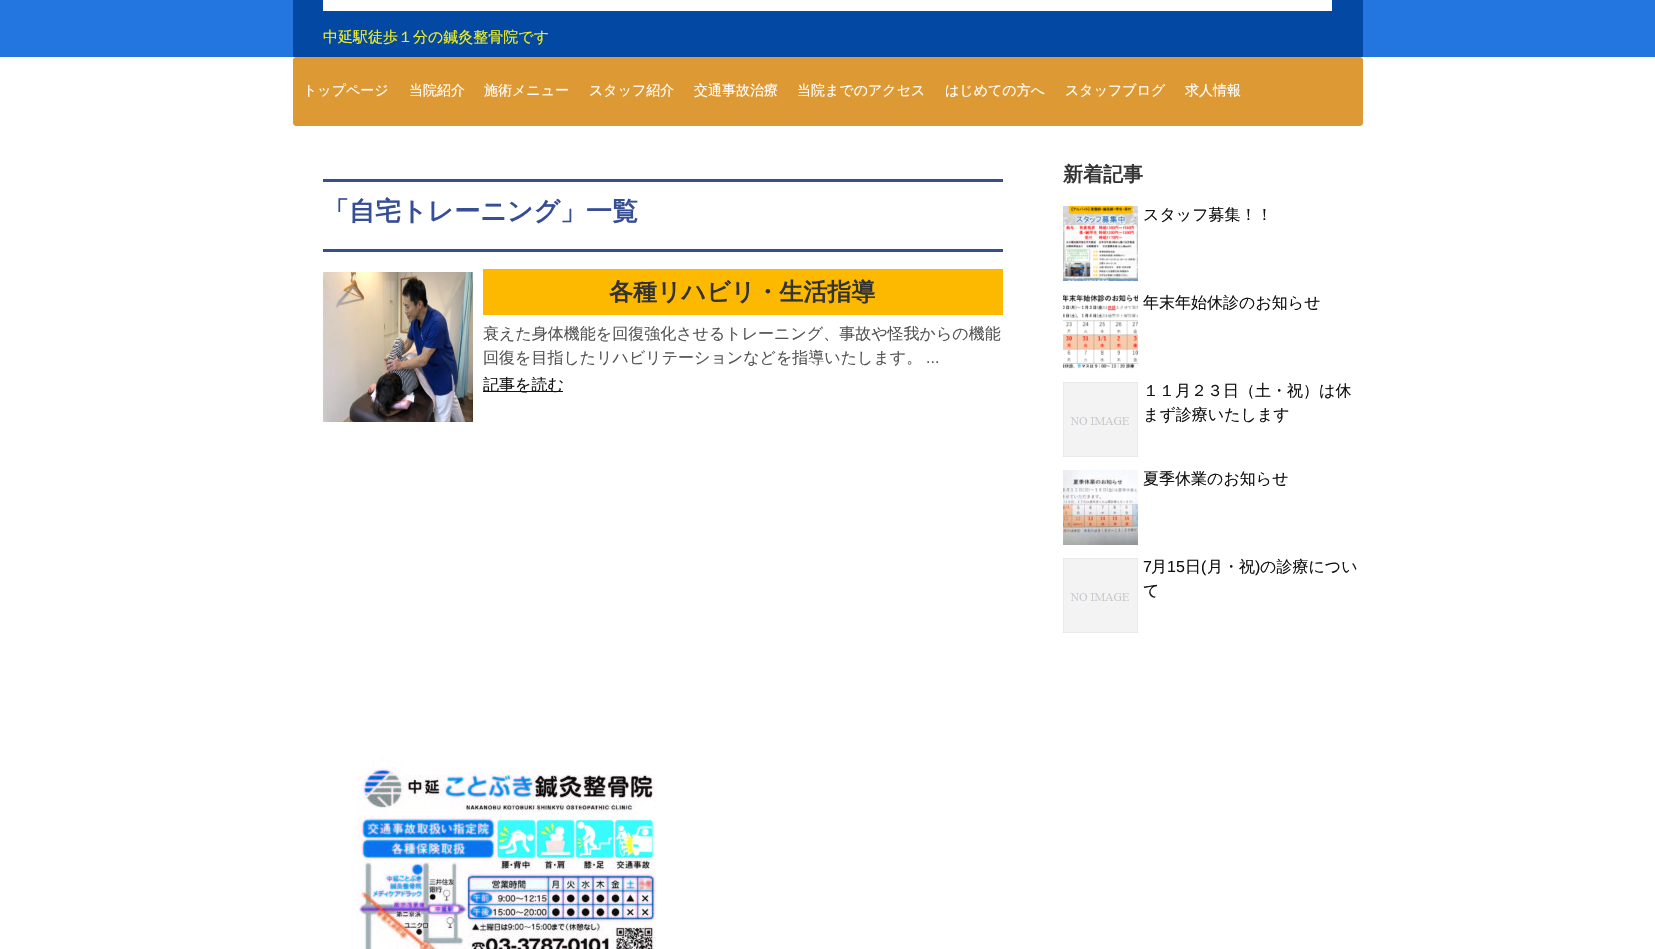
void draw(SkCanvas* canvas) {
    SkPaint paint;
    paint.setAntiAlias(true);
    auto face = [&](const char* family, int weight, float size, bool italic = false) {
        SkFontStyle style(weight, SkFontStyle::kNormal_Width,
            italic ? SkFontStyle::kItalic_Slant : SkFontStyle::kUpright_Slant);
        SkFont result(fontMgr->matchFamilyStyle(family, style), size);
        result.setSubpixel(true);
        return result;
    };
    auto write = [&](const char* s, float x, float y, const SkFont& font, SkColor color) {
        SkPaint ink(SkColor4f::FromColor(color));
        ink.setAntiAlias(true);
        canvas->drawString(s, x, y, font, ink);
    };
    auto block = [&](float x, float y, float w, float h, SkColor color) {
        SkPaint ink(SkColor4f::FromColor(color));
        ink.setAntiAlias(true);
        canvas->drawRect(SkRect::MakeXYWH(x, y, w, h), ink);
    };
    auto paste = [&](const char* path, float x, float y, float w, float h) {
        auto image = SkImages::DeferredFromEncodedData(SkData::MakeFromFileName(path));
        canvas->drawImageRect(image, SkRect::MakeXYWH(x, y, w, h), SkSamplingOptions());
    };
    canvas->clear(SK_ColorWHITE);
    block(0, 0, 1655, 57, SkColorSetRGB(35, 117, 224));
    block(293, 0, 1070, 57, SkColorSetRGB(3, 72, 163));
    block(323, 0, 1009, 11, SK_ColorWHITE);
    auto kFont1 = face("WenQuanYi Zen Hei", 500, 15);
    write("中延駅徒歩１分の鍼灸整骨院です", 323, 42, kFont1, SkColorSetRGB(238, 238, 34));
    paint.setColor(SkColorSetRGB(221, 153, 51));
    canvas->drawRoundRect(SkRect::MakeXYWH(293.5f, 57.5f, 1069, 68), 2.5f, 2.5f, paint);
    paint.setStyle(SkPaint::kStroke_Style);
    paint.setStrokeWidth(1);
    canvas->drawRoundRect(SkRect::MakeXYWH(293.5f, 57.5f, 1069, 68), 2.5f, 2.5f, paint);
    auto kFont2 = face("WenQuanYi Zen Hei", 500, 14);
    write("トップページ", 303, 95, kFont2, SK_ColorWHITE);
    write("当院紹介", 409, 95, kFont2, SK_ColorWHITE);
    write("施術メニュー", 484, 95, kFont2, SK_ColorWHITE);
    write("スタッフ紹介", 589, 95, kFont2, SK_ColorWHITE);
    write("交通事故治療", 694, 95, kFont2, SK_ColorWHITE);
    write("当院までのアクセス", 797, 95, kFont2, SK_ColorWHITE);
    write("はじめての方へ", 945, 95, kFont2, SK_ColorWHITE);
    write("スタッフブログ", 1065, 95, kFont2, SK_ColorWHITE);
    write("求人情報", 1185, 95, kFont2, SK_ColorWHITE);
    block(323, 179, 680, 3, SkColorSetRGB(54, 78, 150));
    block(323, 249, 680, 3, SkColorSetRGB(54, 78, 150));
    auto kFont3 = face("WenQuanYi Zen Hei", 700, 26);
    write("「自宅トレーニング」一覧", 323, 220, kFont3, SkColorSetRGB(54, 78, 150));
    paste("pic1.png", 323, 272, 150, 150);
    block(483, 269, 520, 46, SkColorSetRGB(252, 185, 0));
    auto kFont4 = face("WenQuanYi Zen Hei", 700, 24);
    write("各種リハビリ・生活指導", 609, 300, kFont4, SkColorSetRGB(51, 51, 51));
    auto kFont5 = face("WenQuanYi Zen Hei", 500, 16);
    write("衰えた身体機能を回復強化させるトレーニング、事故や怪我からの機能", 483, 339, kFont5, SkColorSetRGB(85, 85, 85));
    write("回復を目指したリハビリテーションなどを指導いたします。", 483, 363, kFont5, SkColorSetRGB(85, 85, 85));
    auto kFont6 = face("Liberation Sans", 400, 16);
    write("...", 926, 363, kFont6, SkColorSetRGB(85, 85, 85));
    block(483, 391, 80, 1, SkColorSetRGB(17, 17, 17));
    write("記事を読む", 483, 390, kFont5, SkColorSetRGB(17, 17, 17));
    auto kFont7 = face("WenQuanYi Zen Hei", 700, 20);
    write("新着記事", 1063, 181, kFont7, SkColorSetRGB(51, 51, 51));
    paste("pic2.png", 1063, 206, 75, 75);
    write("スタッフ募集！！", 1143, 220, kFont5, SkColorSetRGB(17, 17, 17));
    paste("pic3.png", 1063, 294, 75, 75);
    write("年末年始休診のお知らせ", 1143, 308, kFont5, SkColorSetRGB(17, 17, 17));
    paste("pic4.png", 1063, 382, 75, 75);
    write("１１月２３日（土・祝）は休", 1143, 396, kFont5, SkColorSetRGB(17, 17, 17));
    write("まず診療いたします", 1143, 420, kFont5, SkColorSetRGB(17, 17, 17));
    paste("pic5.png", 1063, 470, 75, 75);
    write("夏季休業のお知らせ", 1143, 484, kFont5, SkColorSetRGB(17, 17, 17));
    paste("pic4.png", 1063, 558, 75, 75);
    write("7", 1143, 572, kFont6, SkColorSetRGB(17, 17, 17));
    write("月", 1151, 572, kFont5, SkColorSetRGB(17, 17, 17));
    write("15", 1167, 572, kFont6, SkColorSetRGB(17, 17, 17));
    write("日", 1185, 572, kFont5, SkColorSetRGB(17, 17, 17));
    write("(", 1201, 572, kFont6, SkColorSetRGB(17, 17, 17));
    write("月・祝", 1207, 572, kFont5, SkColorSetRGB(17, 17, 17));
    write(")", 1255, 572, kFont6, SkColorSetRGB(17, 17, 17));
    write("の診療につい", 1260, 572, kFont5, SkColorSetRGB(17, 17, 17));
    write("て", 1143, 596, kFont5, SkColorSetRGB(17, 17, 17));
    paste("pic6.png", 356, 759, 300, 190);
}
